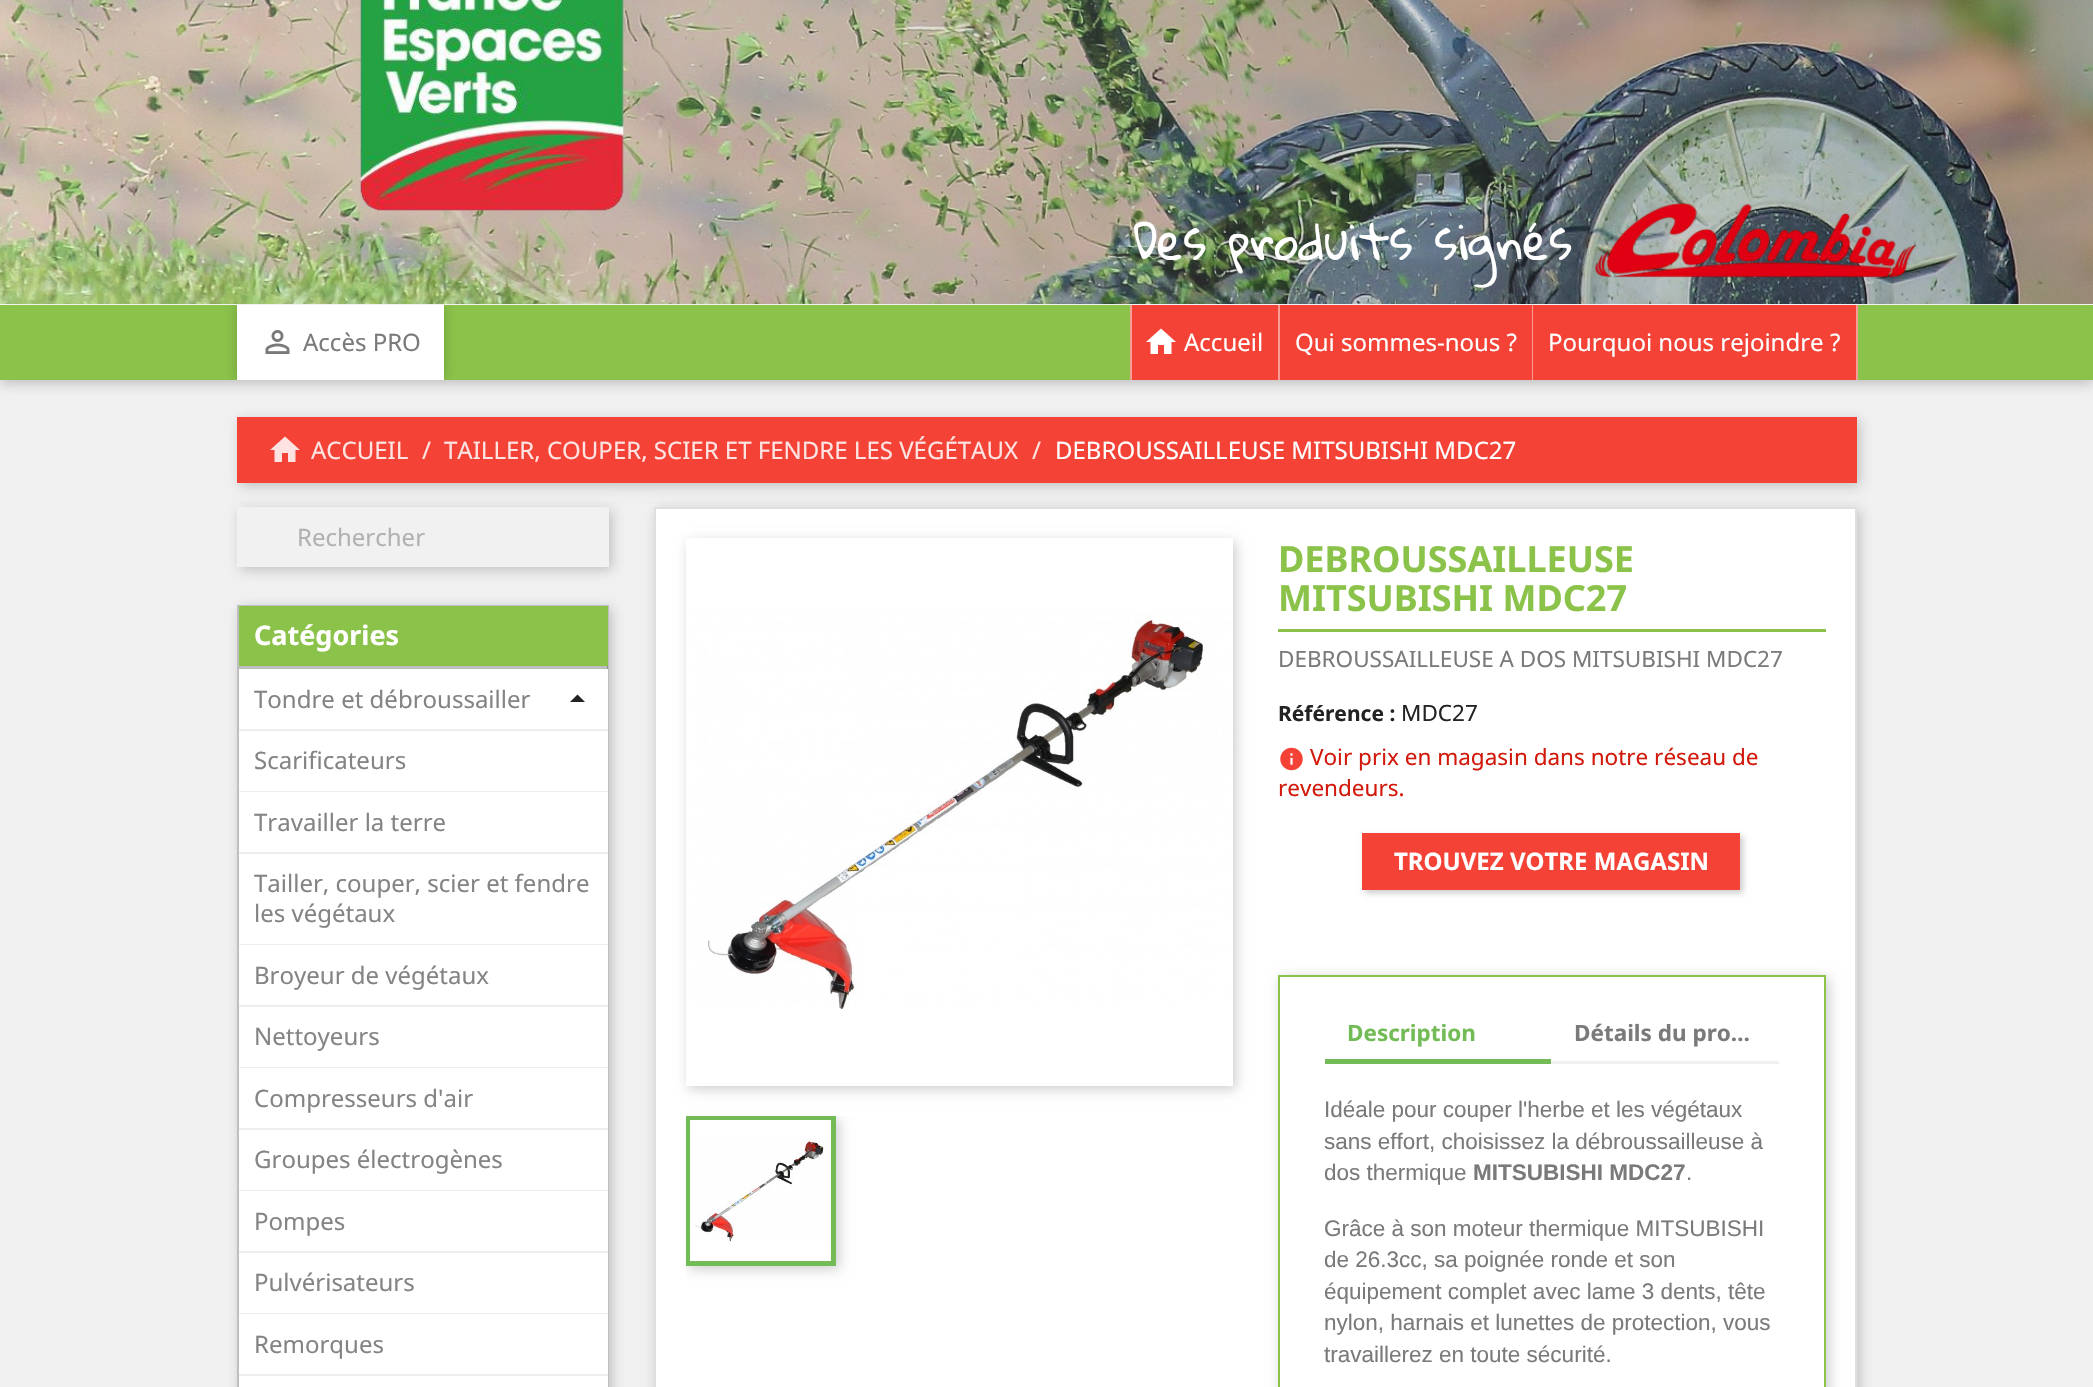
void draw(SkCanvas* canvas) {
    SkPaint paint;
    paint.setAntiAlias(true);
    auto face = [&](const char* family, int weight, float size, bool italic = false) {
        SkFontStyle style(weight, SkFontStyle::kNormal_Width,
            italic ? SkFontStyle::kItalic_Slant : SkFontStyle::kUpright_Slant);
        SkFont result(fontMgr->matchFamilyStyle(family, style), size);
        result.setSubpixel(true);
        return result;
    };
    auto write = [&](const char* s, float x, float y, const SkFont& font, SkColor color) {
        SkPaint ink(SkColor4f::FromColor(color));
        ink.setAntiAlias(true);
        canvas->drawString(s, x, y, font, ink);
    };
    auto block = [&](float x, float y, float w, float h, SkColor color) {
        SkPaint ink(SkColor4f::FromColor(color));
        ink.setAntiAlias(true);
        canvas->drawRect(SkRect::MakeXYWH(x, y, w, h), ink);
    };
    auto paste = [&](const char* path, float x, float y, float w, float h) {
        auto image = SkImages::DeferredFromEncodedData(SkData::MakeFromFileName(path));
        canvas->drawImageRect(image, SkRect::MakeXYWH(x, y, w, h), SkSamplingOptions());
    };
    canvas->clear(SK_ColorWHITE);
    block(0, 380, 2093, 1007, SkColorSetRGB(241, 241, 241));
    paint.setColor(SkColorSetARGB(51, 0, 0, 0));
    paint.setMaskFilter(SkMaskFilter::MakeBlur(kNormal_SkBlurStyle, 6));
    canvas->drawRect(SkRect::MakeXYWH(0, 309, 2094, 75), paint);
    paint.setMaskFilter(nullptr);
    paste("pic1.png", 0, 0, 2093, 304);
    paste("pic2.png", 360, 0, 264, 212);
    auto kFont1 = face("Gloria Hallelujah", 400, 48);
    write("Des produits signés", 1133, 260, kFont1, SK_ColorWHITE);
    paste("pic3.png", 1594, 203, 322, 75);
    block(0, 305, 2093, 75, SkColorSetRGB(139, 195, 74));
    canvas->save();
    canvas->clipRect(SkRect::MakeXYWH(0, 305, 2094, 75));
    paint.setMaskFilter(SkMaskFilter::MakeBlur(kNormal_SkBlurStyle, 6));
    canvas->drawRect(SkRect::MakeXYWH(237, 305, 207, 75), paint);
    paint.setMaskFilter(nullptr);
    canvas->restore();
    block(237, 305, 207, 75, SK_ColorWHITE);
    paste("pic4.png", 265, 330, 25, 24);
    auto kFont2 = face("Noto Sans", 400, 24);
    write("Accès PRO", 303, 351, kFont2, SkColorSetRGB(122, 122, 122));
    block(1132, 305, 146, 75, SkColorSetRGB(244, 67, 54));
    block(1278, 305, 2, 75, SkColorSetRGB(249, 157, 151));
    block(1130, 305, 2, 75, SkColorSetRGB(249, 157, 151));
    paste("pic5.png", 1146, 328, 30, 26);
    write("Accueil", 1184, 351, kFont2, SK_ColorWHITE);
    block(1280, 305, 252, 75, SkColorSetRGB(244, 67, 54));
    block(1532, 305, 1, 75, SkColorSetRGB(249, 157, 151));
    write("Qui sommes-nous ?", 1295, 351, kFont2, SK_ColorWHITE);
    block(1533, 305, 323, 75, SkColorSetRGB(244, 67, 54));
    block(1856, 305, 2, 75, SkColorSetRGB(249, 157, 151));
    write("Pourquoi nous rejoindre ?", 1548, 351, kFont2, SK_ColorWHITE);
    paint.setMaskFilter(SkMaskFilter::MakeBlur(kNormal_SkBlurStyle, 6));
    canvas->drawRect(SkRect::MakeXYWH(240, 420, 1620, 66), paint);
    paint.setMaskFilter(nullptr);
    block(237, 417, 1620, 66, SkColorSetRGB(244, 67, 54));
    paste("pic6.png", 270, 436, 30, 26);
    write("ACCUEIL", 311, 459, kFont2, SkColorSetRGB(253, 227, 225));
    write("/", 422, 459, kFont2, SkColorSetRGB(253, 227, 225));
    write("TAILLER, COUPER, SCIER ET FENDRE LES VÉGÉTAUX", 444, 459, kFont2, SkColorSetRGB(253, 227, 225));
    write("/", 1032, 459, kFont2, SkColorSetRGB(253, 227, 225));
    write("DEBROUSSAILLEUSE MITSUBISHI MDC27", 1055, 459, kFont2, SK_ColorWHITE);
    canvas->save();
    canvas->clipPath(SkPathBuilder(SkPathFillType::kEvenOdd).moveTo(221, 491).lineTo(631, 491).lineTo(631, 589).lineTo(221, 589).close().moveTo(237, 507).lineTo(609, 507).lineTo(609, 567).lineTo(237, 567).close().detach(), true);
    paint.setMaskFilter(SkMaskFilter::MakeBlur(kNormal_SkBlurStyle, 6));
    canvas->drawRect(SkRect::MakeXYWH(240, 510, 372, 60), paint);
    paint.setMaskFilter(nullptr);
    canvas->restore();
    write("Rechercher", 297, 546, kFont2, SkColorSetRGB(177, 177, 177));
    paint.setMaskFilter(SkMaskFilter::MakeBlur(kNormal_SkBlurStyle, 6));
    canvas->drawRect(SkRect::MakeXYWH(240, 608, 372, 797), paint);
    paint.setMaskFilter(nullptr);
    block(239, 666, 368, 3, SK_ColorWHITE);
    paint.setStyle(SkPaint::kStroke_Style);
    paint.setStrokeWidth(2);
    paint.setColor(SkColorSetRGB(191, 191, 191));
    canvas->drawRect(SkRect::MakeXYWH(238, 606, 370, 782), paint);
    block(239, 606, 369, 60, SkColorSetRGB(139, 195, 74));
    auto kFont3 = face("Noto Sans", 700, 27);
    write("Catégories", 254, 645, kFont3, SK_ColorWHITE);
    block(239, 666, 369, 2, SkColorSetARGB(64, 0, 0, 0));
    block(239, 668, 369, 1, SkColorSetARGB(64, 0, 0, 0));
    block(239, 729, 369, 2, SkColorSetRGB(238, 238, 238));
    block(239, 669, 369, 60, SK_ColorWHITE);
    write("Tondre et débroussailler", 254, 708, kFont2, SkColorSetRGB(132, 132, 132));
    paint.setStyle(SkPaint::kFill_Style);
    paint.setColor(SkColorSetRGB(35, 35, 35));
    canvas->drawPath(SkPathBuilder().moveTo(570, 702).lineTo(577.5f, 694.5f).lineTo(585, 702).close().detach(), paint);
    block(239, 791, 369, 1, SkColorSetRGB(238, 238, 238));
    block(239, 731, 369, 60, SK_ColorWHITE);
    write("Scarificateurs", 254, 769, kFont2, SkColorSetRGB(132, 132, 132));
    block(239, 852, 369, 2, SkColorSetRGB(238, 238, 238));
    block(239, 792, 369, 60, SK_ColorWHITE);
    write("Travailler la terre", 254, 831, kFont2, SkColorSetRGB(132, 132, 132));
    block(239, 944, 369, 1, SkColorSetRGB(238, 238, 238));
    block(239, 854, 369, 90, SK_ColorWHITE);
    write("Tailler, couper, scier et fendre", 254, 892, kFont2, SkColorSetRGB(132, 132, 132));
    write("les végétaux", 254, 922, kFont2, SkColorSetRGB(132, 132, 132));
    block(239, 1005, 369, 2, SkColorSetRGB(238, 238, 238));
    block(239, 945, 369, 60, SK_ColorWHITE);
    write("Broyeur de végétaux", 254, 984, kFont2, SkColorSetRGB(132, 132, 132));
    block(239, 1067, 369, 1, SkColorSetRGB(238, 238, 238));
    block(239, 1007, 369, 60, SK_ColorWHITE);
    write("Nettoyeurs", 254, 1045, kFont2, SkColorSetRGB(132, 132, 132));
    block(239, 1128, 369, 2, SkColorSetRGB(238, 238, 238));
    block(239, 1068, 369, 60, SK_ColorWHITE);
    write("Compresseurs d'air", 254, 1107, kFont2, SkColorSetRGB(132, 132, 132));
    block(239, 1190, 369, 1, SkColorSetRGB(238, 238, 238));
    block(239, 1130, 369, 60, SK_ColorWHITE);
    write("Groupes électrogènes", 254, 1168, kFont2, SkColorSetRGB(132, 132, 132));
    block(239, 1251, 369, 2, SkColorSetRGB(238, 238, 238));
    block(239, 1191, 369, 60, SK_ColorWHITE);
    write("Pompes", 254, 1230, kFont2, SkColorSetRGB(132, 132, 132));
    block(239, 1313, 369, 1, SkColorSetRGB(238, 238, 238));
    block(239, 1253, 369, 60, SK_ColorWHITE);
    write("Pulvérisateurs", 254, 1291, kFont2, SkColorSetRGB(132, 132, 132));
    block(239, 1374, 369, 2, SkColorSetRGB(238, 238, 238));
    block(239, 1314, 369, 60, SK_ColorWHITE);
    write("Remorques", 254, 1353, kFont2, SkColorSetRGB(132, 132, 132));
    block(239, 1376, 369, 11, SK_ColorWHITE);
    paint.setColor(SkColorSetARGB(51, 0, 0, 0));
    paint.setMaskFilter(SkMaskFilter::MakeBlur(kNormal_SkBlurStyle, 6));
    canvas->drawRect(SkRect::MakeXYWH(657, 510, 1203, 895), paint);
    paint.setMaskFilter(nullptr);
    paint.setColor(SK_ColorWHITE);
    canvas->drawRect(SkRect::MakeXYWH(655, 508, 1201, 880), paint);
    paint.setStyle(SkPaint::kStroke_Style);
    paint.setColor(SkColorSetRGB(223, 223, 223));
    canvas->drawRect(SkRect::MakeXYWH(655, 508, 1201, 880), paint);
    canvas->save();
    canvas->clipPath(SkPathBuilder(SkPathFillType::kEvenOdd).moveTo(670, 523).lineTo(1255, 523).lineTo(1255, 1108).lineTo(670, 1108).close().moveTo(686, 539).lineTo(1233, 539).lineTo(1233, 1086).lineTo(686, 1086).close().detach(), true);
    paint.setStyle(SkPaint::kFill_Style);
    paint.setColor(SkColorSetARGB(51, 0, 0, 0));
    paint.setMaskFilter(SkMaskFilter::MakeBlur(kNormal_SkBlurStyle, 6));
    canvas->drawRect(SkRect::MakeXYWH(689, 542, 547, 547), paint);
    paint.setMaskFilter(nullptr);
    canvas->restore();
    paste("pic7.png", 690, 538, 543, 471);
    canvas->save();
    canvas->clipRect(SkRect::MakeXYWH(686, 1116, 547, 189));
    paint.setMaskFilter(SkMaskFilter::MakeBlur(kNormal_SkBlurStyle, 6));
    canvas->drawRect(SkRect::MakeXYWH(689, 1119, 150, 150), paint);
    paint.setMaskFilter(nullptr);
    canvas->restore();
    paint.setStyle(SkPaint::kStroke_Style);
    paint.setStrokeWidth(5);
    paint.setColor(SkColorSetRGB(115, 187, 86));
    canvas->drawRect(SkRect::MakeXYWH(688.5f, 1118.5f, 145, 145), paint);
    paste("pic8.png", 690, 1120, 141, 141);
    block(1278, 629, 548, 3, SkColorSetRGB(139, 195, 74));
    auto kFont4 = face("Noto Sans", 700, 36);
    write("DEBROUSSAILLEUSE", 1278, 572, kFont4, SkColorSetRGB(139, 195, 74));
    write("MITSUBISHI MDC27", 1278, 611, kFont4, SkColorSetRGB(139, 195, 74));
    auto kFont5 = face("Noto Sans", 400, 22.5f);
    write("DEBROUSSAILLEUSE A DOS MITSUBISHI MDC27", 1278, 667, kFont5, SkColorSetRGB(122, 122, 122));
    auto kFont6 = face("Noto Sans", 700, 21);
    write("Référence :", 1278, 721, kFont6, SkColorSetRGB(35, 35, 35));
    write("MDC27", 1401, 721, kFont5, SkColorSetRGB(35, 35, 35));
    paste("pic9.png", 1280, 747, 23, 24);
    write("Voir prix en magasin dans notre réseau de", 1310, 765, kFont5, SkColorSetRGB(210, 25, 11));
    write("revendeurs.", 1278, 796, kFont5, SkColorSetRGB(210, 25, 11));
    paint.setStyle(SkPaint::kFill_Style);
    paint.setColor(SkColorSetARGB(51, 0, 0, 0));
    paint.setMaskFilter(SkMaskFilter::MakeBlur(kNormal_SkBlurStyle, 3));
    canvas->drawRect(SkRect::MakeXYWH(1365, 836, 378, 57), paint);
    paint.setMaskFilter(nullptr);
    block(1362, 833, 378, 57, SkColorSetRGB(244, 67, 54));
    auto kFont7 = face("Noto Sans", 700, 24);
    write("TROUVEZ VOTRE MAGASIN", 1394, 870, kFont7, SK_ColorWHITE);
    paint.setMaskFilter(SkMaskFilter::MakeBlur(kNormal_SkBlurStyle, 6));
    canvas->drawRect(SkRect::MakeXYWH(1281, 978, 548, 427), paint);
    paint.setMaskFilter(nullptr);
    paint.setColor(SK_ColorWHITE);
    canvas->drawRect(SkRect::MakeXYWH(1279, 976, 546, 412), paint);
    paint.setStyle(SkPaint::kStroke_Style);
    paint.setStrokeWidth(2);
    paint.setColor(SkColorSetRGB(139, 195, 74));
    canvas->drawRect(SkRect::MakeXYWH(1279, 976, 546, 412), paint);
    block(1551, 1061, 228, 3, SkColorSetRGB(241, 241, 241));
    block(1325, 1059, 226, 5, SkColorSetRGB(115, 187, 86));
    auto kFont8 = face("Noto Sans", 700, 22.5f);
    write("Description", 1347, 1041, kFont8, SkColorSetRGB(115, 187, 86));
    write("Détails du pro…", 1574, 1041, kFont8, SkColorSetRGB(122, 122, 122));
    auto kFont9 = face("Liberation Sans", 400, 22.5f);
    write("Idéale pour couper l'herbe et les végétaux", 1324, 1117, kFont9, SkColorSetRGB(122, 122, 122));
    write("sans effort, choisissez la débroussailleuse à", 1324, 1149, kFont9, SkColorSetRGB(122, 122, 122));
    write("dos thermique", 1324, 1180, kFont9, SkColorSetRGB(122, 122, 122));
    auto kFont10 = face("Liberation Sans", 700, 22.5f);
    write("MITSUBISHI MDC27", 1473, 1180, kFont10, SkColorSetRGB(122, 122, 122));
    write(".", 1686, 1180, kFont9, SkColorSetRGB(122, 122, 122));
    write("Grâce à son moteur thermique MITSUBISHI", 1324, 1236, kFont9, SkColorSetRGB(122, 122, 122));
    write("de 26.3cc, sa poignée ronde et son", 1324, 1267, kFont9, SkColorSetRGB(122, 122, 122));
    write("équipement complet avec lame 3 dents, tête", 1324, 1299, kFont9, SkColorSetRGB(122, 122, 122));
    write("nylon, harnais et lunettes de protection, vous", 1324, 1330, kFont9, SkColorSetRGB(122, 122, 122));
    write("travaillerez en toute sécurité.", 1324, 1362, kFont9, SkColorSetRGB(122, 122, 122));
}
